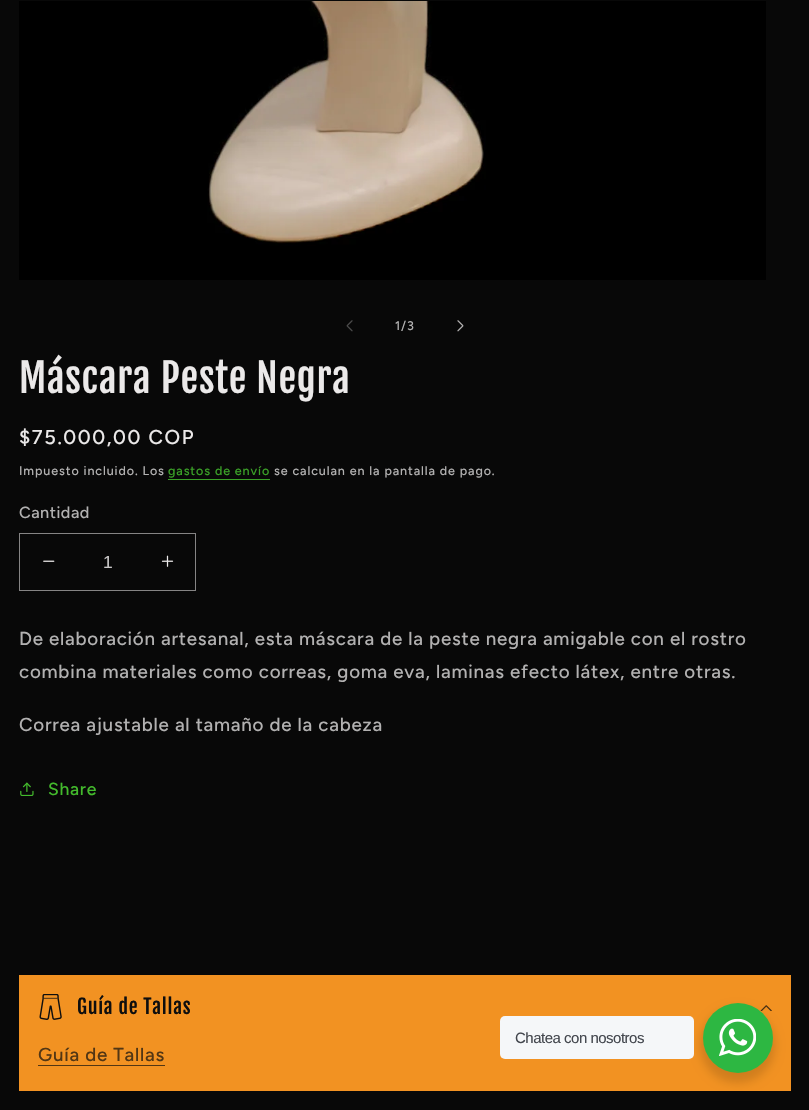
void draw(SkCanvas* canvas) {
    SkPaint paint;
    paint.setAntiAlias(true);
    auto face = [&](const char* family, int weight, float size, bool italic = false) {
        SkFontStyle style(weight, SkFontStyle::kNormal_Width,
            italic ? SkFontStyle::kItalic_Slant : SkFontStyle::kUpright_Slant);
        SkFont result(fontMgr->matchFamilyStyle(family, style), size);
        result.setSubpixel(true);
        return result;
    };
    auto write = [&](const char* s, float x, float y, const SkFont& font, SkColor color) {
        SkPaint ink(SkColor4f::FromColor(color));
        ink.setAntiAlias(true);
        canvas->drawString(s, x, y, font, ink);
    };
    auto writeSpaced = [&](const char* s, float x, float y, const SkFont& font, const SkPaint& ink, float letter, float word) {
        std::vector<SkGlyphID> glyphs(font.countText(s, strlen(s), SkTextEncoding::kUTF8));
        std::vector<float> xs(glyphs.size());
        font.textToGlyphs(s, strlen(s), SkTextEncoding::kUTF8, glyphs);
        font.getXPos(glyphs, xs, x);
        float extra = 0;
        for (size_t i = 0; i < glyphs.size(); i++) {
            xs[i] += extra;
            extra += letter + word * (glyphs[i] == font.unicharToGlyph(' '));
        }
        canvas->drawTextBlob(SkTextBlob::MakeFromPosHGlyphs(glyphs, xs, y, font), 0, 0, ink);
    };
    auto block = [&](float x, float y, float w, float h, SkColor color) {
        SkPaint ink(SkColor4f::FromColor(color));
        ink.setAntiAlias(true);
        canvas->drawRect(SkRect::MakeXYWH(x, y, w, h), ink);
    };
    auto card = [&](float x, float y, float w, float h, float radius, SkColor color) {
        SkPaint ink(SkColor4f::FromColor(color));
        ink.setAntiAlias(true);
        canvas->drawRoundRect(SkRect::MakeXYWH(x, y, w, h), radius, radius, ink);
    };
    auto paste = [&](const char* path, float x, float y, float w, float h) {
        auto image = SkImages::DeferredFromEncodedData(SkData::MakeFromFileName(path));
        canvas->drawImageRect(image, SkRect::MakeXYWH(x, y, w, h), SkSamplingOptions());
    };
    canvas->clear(SkColorSetRGB(8, 8, 8));
    paste("pic1.png", 19, 1, 747, 279);
    paste("pic2.png", 346, 320, 7, 12);
    auto kFont1 = face("Figtree", 500, 12.5f);
    paint.setColor(SkColorSetRGB(178, 177, 177));
    writeSpaced("1/3", 395, 330, kFont1, paint, 0.9f, 0);
    paste("pic3.png", 457, 320, 7, 12);
    auto kFont2 = face("Fjalla One", 400, 39.4f);
    paint.setColor(SkColorSetRGB(235, 233, 233));
    writeSpaced("Máscara Peste Negra", 19, 393, kFont2, paint, 0.75f, 0);
    auto kFont3 = face("Figtree", 500, 20);
    writeSpaced("$75.000,00 COP", 19, 444, kFont3, paint, 1.6f, 0);
    paint.setColor(SkColorSetRGB(178, 177, 177));
    writeSpaced("Impuesto incluido. Los", 19, 475, kFont1, paint, 0.9f, 0);
    paint.setColor(SkColorSetRGB(58, 160, 39));
    writeSpaced("gastos de envío", 168, 475, kFont1, paint, 0.9f, 0);
    block(168, 479, 102, 1, SkColorSetRGB(58, 160, 39));
    paint.setColor(SkColorSetRGB(178, 177, 177));
    writeSpaced("se calculan en la pantalla de pago.", 274, 475, kFont1, paint, 0.9f, 0);
    auto kFont4 = face("Figtree", 500, 16.25f);
    writeSpaced("Cantidad", 19, 518, kFont4, paint, 0.5f, 0);
    paste("pic4.png", 43, 560, 12, 2);
    paste("pic5.png", 161, 555, 13, 12);
    paint.setStyle(SkPaint::kStroke_Style);
    paint.setStrokeWidth(1);
    paint.setColor(SkColorSetRGB(133, 132, 132));
    canvas->drawRect(SkRect::MakeXYWH(19.5f, 533.5f, 176, 57), paint);
    auto kFont5 = face("Liberation Sans", 400, 17.5f);
    write("1", 103, 568, kFont5, SkColorSetRGB(201, 199, 199));
    auto kFont6 = face("Figtree", 500, 18.75f);
    paint.setStyle(SkPaint::kFill_Style);
    paint.setColor(SkColorSetRGB(178, 177, 177));
    writeSpaced("De elaboración artesanal, esta máscara de la peste negra amigable con el rostro", 19, 645, kFont6, paint, 0.75f, 0);
    writeSpaced("combina materiales como correas, goma eva, laminas efecto látex, entre otras.", 19, 678, kFont6, paint, 0.75f, 0);
    writeSpaced("Correa ajustable al tamaño de la cabeza", 19, 731, kFont6, paint, 0.75f, 0);
    paste("pic6.png", 20, 782, 14, 14);
    auto kFont7 = face("Figtree", 500, 17.5f);
    paint.setColor(SkColorSetRGB(67, 187, 44));
    writeSpaced("Share", 48, 795, kFont7, paint, 0.75f, 0);
    block(19, 975, 772, 116, SkColorSetRGB(242, 146, 34));
    paste("pic7.png", 39, 994, 23, 26);
    auto kFont8 = face("Fjalla One", 400, 19.75f);
    paint.setColor(SkColorSetRGB(14, 14, 14));
    writeSpaced("Guía de Tallas", 77, 1014, kFont8, paint, 0.75f, 0);
    paste("pic8.png", 760, 1005, 12, 6);
    paint.setColor(SkColorSetRGB(82, 54, 20));
    writeSpaced("Guía de Tallas", 38, 1061, kFont6, paint, 0.75f, 0);
    block(38, 1065, 127, 1, SkColorSetRGB(82, 54, 20));
    paint.setColor(SkColorSetARGB(36, 0, 0, 0));
    paint.setMaskFilter(SkMaskFilter::MakeBlur(kNormal_SkBlurStyle, 5));
    canvas->drawRoundRect(SkRect::MakeXYWH(700, 1008, 75, 75), 37.5f, 37.5f, paint);
    paint.setMaskFilter(nullptr);
    card(500, 1016, 194, 43, 5, SkColorSetRGB(245, 247, 249));
    auto kFont9 = face("Liberation Sans", 400, 15);
    paint.setColor(SkColorSetRGB(67, 71, 78));
    writeSpaced("Chatea con nosotros", 515, 1043, kFont9, paint, -0.5f, 0);
    paint.setColor(SkColorSetRGB(45, 183, 66));
    canvas->drawCircle(738, 1038, 35, paint);
    paste("pic9.png", 719, 1019, 37, 37);
}
